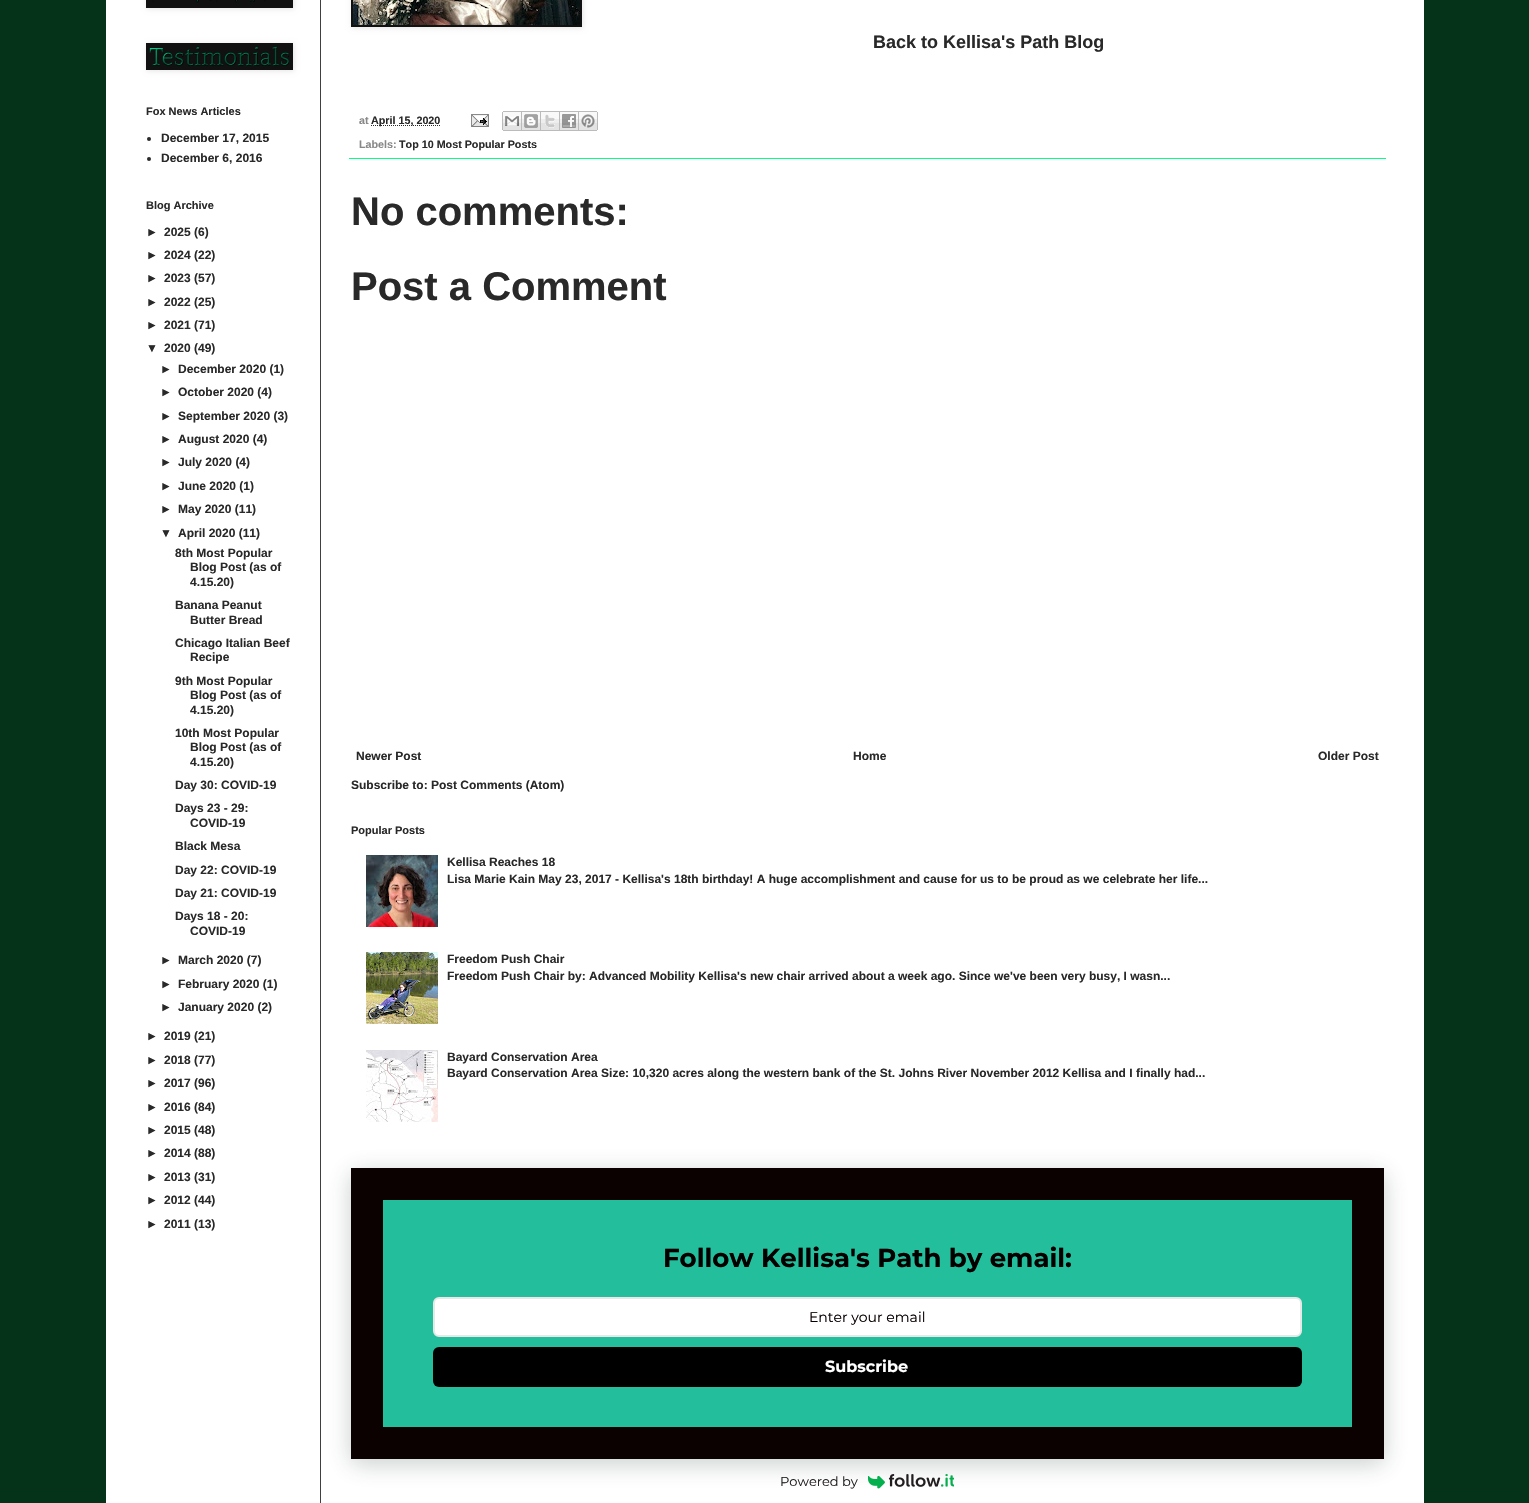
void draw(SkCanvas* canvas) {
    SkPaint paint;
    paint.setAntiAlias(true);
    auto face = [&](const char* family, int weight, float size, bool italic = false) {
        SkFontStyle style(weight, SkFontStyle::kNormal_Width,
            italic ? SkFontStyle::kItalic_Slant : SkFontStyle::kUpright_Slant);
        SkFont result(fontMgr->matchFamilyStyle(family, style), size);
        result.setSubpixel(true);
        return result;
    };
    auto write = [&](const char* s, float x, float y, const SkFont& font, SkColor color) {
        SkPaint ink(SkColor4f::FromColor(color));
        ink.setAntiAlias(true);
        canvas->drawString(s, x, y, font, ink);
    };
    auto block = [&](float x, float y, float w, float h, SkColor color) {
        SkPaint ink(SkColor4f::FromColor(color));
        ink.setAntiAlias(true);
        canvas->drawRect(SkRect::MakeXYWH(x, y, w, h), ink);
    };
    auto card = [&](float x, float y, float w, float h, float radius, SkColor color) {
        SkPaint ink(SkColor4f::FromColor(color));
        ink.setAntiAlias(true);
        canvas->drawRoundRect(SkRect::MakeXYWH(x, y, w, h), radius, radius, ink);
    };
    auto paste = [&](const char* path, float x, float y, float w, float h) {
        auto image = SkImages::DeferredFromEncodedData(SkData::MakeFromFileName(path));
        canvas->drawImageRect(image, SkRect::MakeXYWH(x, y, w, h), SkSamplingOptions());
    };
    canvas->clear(SkColorSetRGB(4, 51, 26));
    block(106, 0, 1318, 1503, SK_ColorWHITE);
    block(320, 0, 1, 1503, SkColorSetRGB(64, 64, 64));
    paint.setColor(SkColorSetARGB(26, 0, 0, 0));
    paint.setMaskFilter(SkMaskFilter::MakeBlur(kNormal_SkBlurStyle, 2.5f));
    canvas->drawRect(SkRect::MakeXYWH(147, -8, 147, 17), paint);
    paint.setMaskFilter(nullptr);
    block(146, 0, 147, 8, SkColorSetRGB(17, 17, 17));
    paste("pic1.png", 152, 0, 114, 3);
    paint.setMaskFilter(SkMaskFilter::MakeBlur(kNormal_SkBlurStyle, 2.5f));
    canvas->drawRect(SkRect::MakeXYWH(147, 44, 147, 27), paint);
    paint.setMaskFilter(nullptr);
    block(146, 43, 147, 27, SkColorSetRGB(17, 17, 17));
    paste("pic2.png", 149, 46, 140, 20);
    auto kFont1 = face("Liberation Sans", 700, 11);
    write("Fox News Articles", 146, 115, kFont1, SkColorSetRGB(41, 41, 41));
    paint.setColor(SkColorSetRGB(41, 41, 41));
    canvas->drawCircle(149, 139, 2, paint);
    auto kFont2 = face("Liberation Sans", 700, 12);
    write("December 17, 2015", 161, 142, kFont2, SkColorSetRGB(41, 41, 41));
    canvas->drawCircle(149, 159, 2, paint);
    write("December 6, 2016", 161, 162, kFont2, SkColorSetRGB(41, 41, 41));
    write("Blog Archive", 146, 209, kFont1, SkColorSetRGB(41, 41, 41));
    write("►", 146, 236, kFont2, SkColorSetRGB(41, 41, 41));
    write("2025 (6)", 164, 236, kFont2, SkColorSetRGB(41, 41, 41));
    write("►", 146, 259, kFont2, SkColorSetRGB(41, 41, 41));
    write("2024 (22)", 164, 259, kFont2, SkColorSetRGB(41, 41, 41));
    write("►", 146, 282, kFont2, SkColorSetRGB(41, 41, 41));
    write("2023 (57)", 164, 282, kFont2, SkColorSetRGB(41, 41, 41));
    write("►", 146, 306, kFont2, SkColorSetRGB(41, 41, 41));
    write("2022 (25)", 164, 306, kFont2, SkColorSetRGB(41, 41, 41));
    write("►", 146, 329, kFont2, SkColorSetRGB(41, 41, 41));
    write("2021 (71)", 164, 329, kFont2, SkColorSetRGB(41, 41, 41));
    write("▼", 146, 352, kFont2, SkColorSetRGB(41, 41, 41));
    write("2020 (49)", 164, 352, kFont2, SkColorSetRGB(41, 41, 41));
    write("►", 160, 373, kFont2, SkColorSetRGB(41, 41, 41));
    write("December 2020 (1)", 178, 373, kFont2, SkColorSetRGB(41, 41, 41));
    write("►", 160, 396, kFont2, SkColorSetRGB(41, 41, 41));
    write("October 2020 (4)", 178, 396, kFont2, SkColorSetRGB(41, 41, 41));
    write("►", 160, 420, kFont2, SkColorSetRGB(41, 41, 41));
    write("September 2020 (3)", 178, 420, kFont2, SkColorSetRGB(41, 41, 41));
    write("►", 160, 443, kFont2, SkColorSetRGB(41, 41, 41));
    write("August 2020 (4)", 178, 443, kFont2, SkColorSetRGB(41, 41, 41));
    write("►", 160, 466, kFont2, SkColorSetRGB(41, 41, 41));
    write("July 2020 (4)", 178, 466, kFont2, SkColorSetRGB(41, 41, 41));
    write("►", 160, 490, kFont2, SkColorSetRGB(41, 41, 41));
    write("June 2020 (1)", 178, 490, kFont2, SkColorSetRGB(41, 41, 41));
    write("►", 160, 513, kFont2, SkColorSetRGB(41, 41, 41));
    write("May 2020 (11)", 178, 513, kFont2, SkColorSetRGB(41, 41, 41));
    write("▼", 160, 537, kFont2, SkColorSetRGB(41, 41, 41));
    write("April 2020 (11)", 178, 537, kFont2, SkColorSetRGB(41, 41, 41));
    write("8th Most Popular", 175, 557, kFont2, SkColorSetRGB(41, 41, 41));
    write("Blog Post (as of", 190, 571, kFont2, SkColorSetRGB(41, 41, 41));
    write("4.15.20)", 190, 586, kFont2, SkColorSetRGB(41, 41, 41));
    write("Banana Peanut", 175, 609, kFont2, SkColorSetRGB(41, 41, 41));
    write("Butter Bread", 190, 624, kFont2, SkColorSetRGB(41, 41, 41));
    write("Chicago Italian Beef", 175, 647, kFont2, SkColorSetRGB(41, 41, 41));
    write("Recipe", 190, 661, kFont2, SkColorSetRGB(41, 41, 41));
    write("9th Most Popular", 175, 685, kFont2, SkColorSetRGB(41, 41, 41));
    write("Blog Post (as of", 190, 699, kFont2, SkColorSetRGB(41, 41, 41));
    write("4.15.20)", 190, 714, kFont2, SkColorSetRGB(41, 41, 41));
    write("10th Most Popular", 175, 737, kFont2, SkColorSetRGB(41, 41, 41));
    write("Blog Post (as of", 190, 751, kFont2, SkColorSetRGB(41, 41, 41));
    write("4.15.20)", 190, 766, kFont2, SkColorSetRGB(41, 41, 41));
    write("Day 30: COVID-19", 175, 789, kFont2, SkColorSetRGB(41, 41, 41));
    write("Days 23 - 29:", 175, 812, kFont2, SkColorSetRGB(41, 41, 41));
    write("COVID-19", 190, 827, kFont2, SkColorSetRGB(41, 41, 41));
    write("Black Mesa", 175, 850, kFont2, SkColorSetRGB(41, 41, 41));
    write("Day 22: COVID-19", 175, 874, kFont2, SkColorSetRGB(41, 41, 41));
    write("Day 21: COVID-19", 175, 897, kFont2, SkColorSetRGB(41, 41, 41));
    write("Days 18 - 20:", 175, 920, kFont2, SkColorSetRGB(41, 41, 41));
    write("COVID-19", 190, 935, kFont2, SkColorSetRGB(41, 41, 41));
    write("►", 160, 964, kFont2, SkColorSetRGB(41, 41, 41));
    write("March 2020 (7)", 178, 964, kFont2, SkColorSetRGB(41, 41, 41));
    write("►", 160, 988, kFont2, SkColorSetRGB(41, 41, 41));
    write("February 2020 (1)", 178, 988, kFont2, SkColorSetRGB(41, 41, 41));
    write("►", 160, 1011, kFont2, SkColorSetRGB(41, 41, 41));
    write("January 2020 (2)", 178, 1011, kFont2, SkColorSetRGB(41, 41, 41));
    write("►", 146, 1040, kFont2, SkColorSetRGB(41, 41, 41));
    write("2019 (21)", 164, 1040, kFont2, SkColorSetRGB(41, 41, 41));
    write("►", 146, 1064, kFont2, SkColorSetRGB(41, 41, 41));
    write("2018 (77)", 164, 1064, kFont2, SkColorSetRGB(41, 41, 41));
    write("►", 146, 1087, kFont2, SkColorSetRGB(41, 41, 41));
    write("2017 (96)", 164, 1087, kFont2, SkColorSetRGB(41, 41, 41));
    write("►", 146, 1111, kFont2, SkColorSetRGB(41, 41, 41));
    write("2016 (84)", 164, 1111, kFont2, SkColorSetRGB(41, 41, 41));
    write("►", 146, 1134, kFont2, SkColorSetRGB(41, 41, 41));
    write("2015 (48)", 164, 1134, kFont2, SkColorSetRGB(41, 41, 41));
    write("►", 146, 1157, kFont2, SkColorSetRGB(41, 41, 41));
    write("2014 (88)", 164, 1157, kFont2, SkColorSetRGB(41, 41, 41));
    write("►", 146, 1181, kFont2, SkColorSetRGB(41, 41, 41));
    write("2013 (31)", 164, 1181, kFont2, SkColorSetRGB(41, 41, 41));
    write("►", 146, 1204, kFont2, SkColorSetRGB(41, 41, 41));
    write("2012 (44)", 164, 1204, kFont2, SkColorSetRGB(41, 41, 41));
    write("►", 146, 1228, kFont2, SkColorSetRGB(41, 41, 41));
    write("2011 (13)", 164, 1228, kFont2, SkColorSetRGB(41, 41, 41));
    paint.setColor(SkColorSetARGB(26, 0, 0, 0));
    paint.setMaskFilter(SkMaskFilter::MakeBlur(kNormal_SkBlurStyle, 2.5f));
    canvas->drawRect(SkRect::MakeXYWH(352, -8, 231, 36), paint);
    paint.setMaskFilter(nullptr);
    block(351, 0, 231, 27, SkColorSetRGB(17, 17, 17));
    paste("pic3.png", 353, 0, 227, 25);
    auto kFont3 = face("Liberation Sans", 700, 18);
    write("Back to Kellisa's Path Blog", 873, 48, kFont3, SkColorSetRGB(41, 41, 41));
    block(349, 158, 1037, 1, SkColorSetRGB(8, 255, 135));
    auto kFont4 = face("Liberation Sans", 700, 10.75f);
    write("at", 359, 124, kFont4, SkColorSetRGB(136, 136, 136));
    paint.setStyle(SkPaint::kStroke_Style);
    paint.setStrokeWidth(1);
    paint.setColor(SkColorSetRGB(41, 41, 41));
    paint.setPathEffect(SkDashPathEffect::Make({{1, 1}}, 0));
    canvas->drawPath(SkPathBuilder().moveTo(371, 125.5f).lineTo(440.5f, 125.5f).detach(), paint);
    paint.setPathEffect(nullptr);
    write("April 15, 2020", 371, 124, kFont4, SkColorSetRGB(41, 41, 41));
    paste("pic4.png", 471, 114, 18, 13);
    paste("pic5.png", 502, 111, 20, 20);
    paste("pic6.png", 522, 111, 19, 20);
    paste("pic7.png", 541, 111, 19, 20);
    paste("pic8.png", 560, 111, 19, 20);
    paste("pic9.png", 579, 111, 19, 20);
    write("Labels:", 359, 148, kFont4, SkColorSetRGB(136, 136, 136));
    write("Top 10 Most Popular Posts", 399, 148, kFont4, SkColorSetRGB(41, 41, 41));
    auto kFont5 = face("Liberation Sans", 700, 40);
    write("No comments:", 351, 225, kFont5, SkColorSetRGB(41, 41, 41));
    write("Post a Comment", 351, 300, kFont5, SkColorSetRGB(41, 41, 41));
    write("Newer Post", 356, 760, kFont2, SkColorSetRGB(41, 41, 41));
    write("Home", 853, 760, kFont2, SkColorSetRGB(41, 41, 41));
    write("Older Post", 1318, 760, kFont2, SkColorSetRGB(41, 41, 41));
    write("Subscribe to: Post Comments (Atom)", 351, 789, kFont2, SkColorSetRGB(41, 41, 41));
    write("Popular Posts", 351, 834, kFont1, SkColorSetRGB(41, 41, 41));
    paste("pic10.png", 366, 855, 72, 72);
    write("Kellisa Reaches 18", 447, 866, kFont2, SkColorSetRGB(41, 41, 41));
    write("Lisa Marie Kain May 23, 2017 - Kellisa's 18th birthday! A huge accomplishment and cause for us to be proud as we celebrate her life...", 447, 883, kFont2, SkColorSetRGB(41, 41, 41));
    paste("pic11.png", 366, 952, 72, 72);
    write("Freedom Push Chair", 447, 963, kFont2, SkColorSetRGB(41, 41, 41));
    write("Freedom Push Chair by: Advanced Mobility Kellisa's new chair arrived about a week ago. Since we've been very busy, I wasn...", 447, 980, kFont2, SkColorSetRGB(41, 41, 41));
    paste("pic12.png", 366, 1050, 72, 72);
    write("Bayard Conservation Area", 447, 1061, kFont2, SkColorSetRGB(41, 41, 41));
    write("Bayard Conservation Area Size: 10,320 acres along the western bank of the St. Johns River November 2012 Kellisa and I finally had...", 447, 1077, kFont2, SkColorSetRGB(41, 41, 41));
    paint.setStyle(SkPaint::kFill_Style);
    paint.setColor(SkColorSetARGB(64, 34, 60, 47));
    paint.setMaskFilter(SkMaskFilter::MakeBlur(kNormal_SkBlurStyle, 12.5f));
    canvas->drawRoundRect(SkRect::MakeXYWH(351, 1173, 1033, 291), 6, 6, paint);
    paint.setMaskFilter(nullptr);
    block(383, 1200, 969, 227, SkColorSetRGB(35, 190, 156));
    paint.setStyle(SkPaint::kStroke_Style);
    paint.setStrokeWidth(32);
    paint.setColor(SkColorSetRGB(12, 1, 1));
    canvas->drawPath(SkPathBuilder().moveTo(367, 1184).lineTo(1368, 1184).lineTo(1368, 1443).lineTo(367, 1443).close().detach(), paint);
    auto kFont6 = face("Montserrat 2", 100, 26);
    write("Follow Kellisa's Path by email:", 663, 1267, kFont6, SK_ColorBLACK);
    paint.setStyle(SkPaint::kFill_Style);
    paint.setColor(SK_ColorWHITE);
    canvas->drawRoundRect(SkRect::MakeXYWH(434, 1298, 867, 38), 5, 5, paint);
    paint.setStyle(SkPaint::kStroke_Style);
    paint.setStrokeWidth(2);
    paint.setColor(SkColorSetRGB(233, 232, 232));
    canvas->drawRoundRect(SkRect::MakeXYWH(434, 1298, 867, 38), 5, 5, paint);
    auto kFont7 = face("Montserrat", 100, 14);
    write("Enter your email", 809, 1322, kFont7, SkColorSetRGB(8, 0, 0));
    card(433, 1347, 869, 40, 6, SK_ColorBLACK);
    auto kFont8 = face("Montserrat 2", 100, 16);
    write("Subscribe", 825, 1372, kFont8, SK_ColorWHITE);
    auto kFont9 = face("Montserrat", 100, 13);
    write("Powered by", 780, 1486, kFont9, SkColorSetRGB(35, 31, 32));
    paste("pic13.png", 868, 1474, 86, 15);
}
